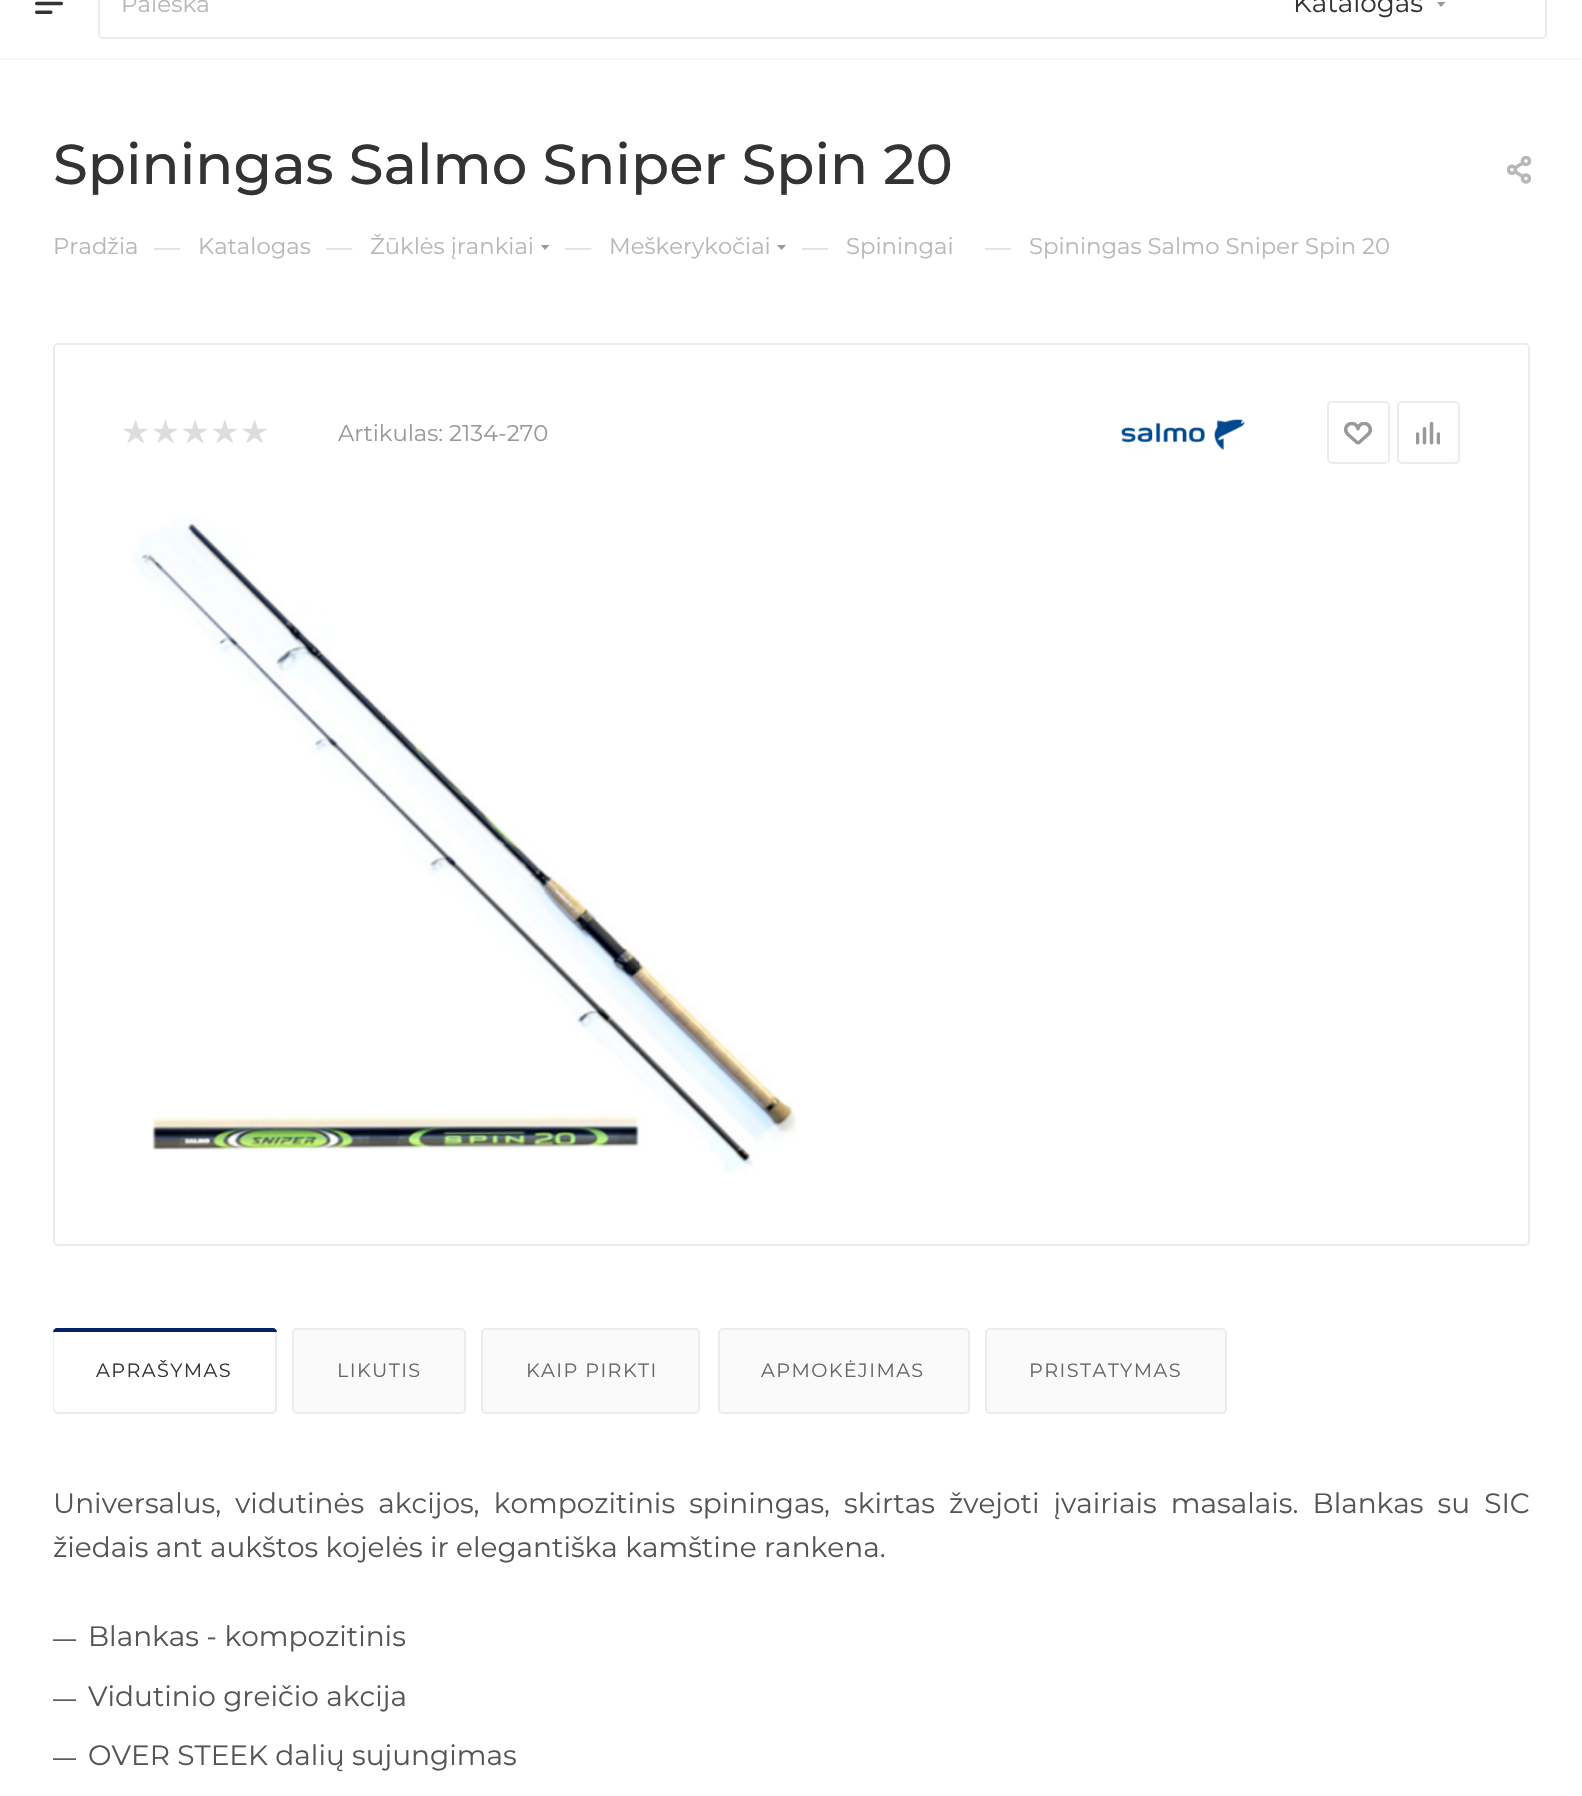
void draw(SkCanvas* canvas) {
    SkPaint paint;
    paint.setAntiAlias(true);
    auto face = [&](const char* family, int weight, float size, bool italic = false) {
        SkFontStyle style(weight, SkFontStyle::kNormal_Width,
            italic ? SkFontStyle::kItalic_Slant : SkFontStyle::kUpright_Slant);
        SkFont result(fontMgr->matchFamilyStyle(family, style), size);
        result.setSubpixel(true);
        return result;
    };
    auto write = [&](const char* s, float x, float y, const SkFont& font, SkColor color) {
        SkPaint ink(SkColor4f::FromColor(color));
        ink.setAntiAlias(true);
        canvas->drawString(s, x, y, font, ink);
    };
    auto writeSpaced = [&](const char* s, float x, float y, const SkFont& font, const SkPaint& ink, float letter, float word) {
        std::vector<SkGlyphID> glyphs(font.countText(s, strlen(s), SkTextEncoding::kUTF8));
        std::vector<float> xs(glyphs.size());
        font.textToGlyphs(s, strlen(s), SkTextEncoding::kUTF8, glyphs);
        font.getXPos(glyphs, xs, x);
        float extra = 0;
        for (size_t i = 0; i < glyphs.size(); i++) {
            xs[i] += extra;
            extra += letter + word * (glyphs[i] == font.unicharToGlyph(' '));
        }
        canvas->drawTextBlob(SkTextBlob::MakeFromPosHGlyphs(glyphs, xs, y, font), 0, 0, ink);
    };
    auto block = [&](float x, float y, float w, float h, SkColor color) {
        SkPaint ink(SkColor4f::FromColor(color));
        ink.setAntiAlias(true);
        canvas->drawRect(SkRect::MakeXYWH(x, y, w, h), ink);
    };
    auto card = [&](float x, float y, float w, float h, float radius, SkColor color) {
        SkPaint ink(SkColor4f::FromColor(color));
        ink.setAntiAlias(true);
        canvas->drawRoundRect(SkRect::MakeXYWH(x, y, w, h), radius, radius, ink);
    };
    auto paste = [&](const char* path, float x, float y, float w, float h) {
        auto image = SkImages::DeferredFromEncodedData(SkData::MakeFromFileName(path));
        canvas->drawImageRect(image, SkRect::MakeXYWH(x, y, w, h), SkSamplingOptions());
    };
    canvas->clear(SK_ColorWHITE);
    block(0, 58, 1582, 2, SkColorSetRGB(248, 248, 248));
    paste("pic1.png", 35, 1, 28, 13);
    paint.setStyle(SkPaint::kStroke_Style);
    paint.setStrokeWidth(2);
    paint.setColor(SkColorSetRGB(236, 236, 236));
    canvas->drawRoundRect(SkRect::MakeXYWH(99, -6, 1447, 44), 4, 4, paint);
    auto kFont1 = face("Montserrat", 400, 23);
    write("Paieška", 121, 12, kFont1, SkColorSetRGB(184, 184, 184));
    auto kFont2 = face("Montserrat", 400, 26.25f);
    write("Katalogas", 1293, 12, kFont2, SkColorSetRGB(51, 51, 51));
    paint.setStyle(SkPaint::kFill_Style);
    paint.setColor(SkColorSetRGB(153, 153, 153));
    canvas->drawPath(SkPathBuilder(SkPathFillType::kEvenOdd).moveTo(1437, 2).lineTo(1445.5f, 2).lineTo(1441, 7).close().detach(), paint);
    auto kFont3 = face("Montserrat", 500, 56);
    write("Spiningas Salmo Sniper Spin 20", 53, 184, kFont3, SkColorSetRGB(51, 51, 51));
    paste("pic2.png", 1507, 156, 24, 28);
    auto kFont4 = face("Montserrat", 400, 22.75f);
    write("Pradžia", 53, 254, kFont4, SkColorSetRGB(184, 184, 184));
    write("—", 154, 256, kFont2, SkColorSetRGB(221, 221, 221));
    write("Katalogas", 198, 254, kFont4, SkColorSetRGB(184, 184, 184));
    write("—", 326, 256, kFont2, SkColorSetRGB(221, 221, 221));
    write("Žūklės įrankiai", 370, 254, kFont4, SkColorSetRGB(184, 184, 184));
    canvas->drawPath(SkPathBuilder(SkPathFillType::kEvenOdd).moveTo(541, 245).lineTo(549.5f, 245).lineTo(545, 250).close().detach(), paint);
    write("—", 565, 256, kFont2, SkColorSetRGB(221, 221, 221));
    write("Meškerykočiai", 609, 254, kFont4, SkColorSetRGB(184, 184, 184));
    canvas->drawPath(SkPathBuilder(SkPathFillType::kEvenOdd).moveTo(777, 245).lineTo(786, 245).lineTo(781.5f, 250).close().detach(), paint);
    write("—", 802, 256, kFont2, SkColorSetRGB(221, 221, 221));
    write("Spiningai", 846, 254, kFont4, SkColorSetRGB(184, 184, 184));
    write("—", 985, 256, kFont2, SkColorSetRGB(221, 221, 221));
    write("Spiningas Salmo Sniper Spin 20", 1029, 254, kFont4, SkColorSetRGB(184, 184, 184));
    paint.setStyle(SkPaint::kStroke_Style);
    paint.setColor(SkColorSetRGB(236, 236, 236));
    canvas->drawRoundRect(SkRect::MakeXYWH(54, 344, 1475, 901), 4, 4, paint);
    paste("pic3.png", 123, 420, 25, 23);
    paste("pic4.png", 153, 420, 25, 23);
    paste("pic5.png", 183, 420, 24, 23);
    paste("pic6.png", 213, 420, 24, 23);
    paste("pic3.png", 242, 420, 25, 23);
    write("Artikulas: 2134-270", 338, 441, kFont4, SkColorSetRGB(153, 153, 153));
    paste("pic7.png", 1121, 419, 124, 31);
    canvas->drawRoundRect(SkRect::MakeXYWH(1328, 402, 61, 61), 4, 4, paint);
    paste("pic8.png", 1344, 422, 28, 23);
    canvas->drawRoundRect(SkRect::MakeXYWH(1398, 402, 61, 61), 4, 4, paint);
    paste("pic9.png", 1416, 422, 24, 23);
    paste("pic10.png", 132, 516, 665, 658);
    paint.setStyle(SkPaint::kFill_Style);
    paint.setColor(SkColorSetRGB(250, 250, 250));
    canvas->drawRoundRect(SkRect::MakeXYWH(54, 1329, 222, 84), 4, 4, paint);
    paint.setStyle(SkPaint::kStroke_Style);
    paint.setColor(SkColorSetRGB(236, 236, 236));
    canvas->drawRoundRect(SkRect::MakeXYWH(54, 1329, 222, 84), 4, 4, paint);
    card(54, 1330, 221, 82, 5, SK_ColorWHITE);
    paint.setStyle(SkPaint::kFill_Style);
    paint.setColor(SkColorSetRGB(1, 33, 105));
    canvas->drawPath(SkPathBuilder().moveTo(57, 1328).lineTo(273, 1328).cubicTo(275, 1328, 277, 1330, 277, 1332).lineTo(53, 1332).cubicTo(53, 1330, 55, 1328, 57, 1328).close().detach(), paint);
    auto kFont5 = face("Montserrat", 400, 19.25f);
    paint.setColor(SkColorSetRGB(51, 51, 51));
    writeSpaced("APRAŠYMAS", 96, 1377, kFont5, paint, 1.4f, 0);
    paint.setColor(SkColorSetRGB(250, 250, 250));
    canvas->drawRoundRect(SkRect::MakeXYWH(293, 1329, 172, 84), 4, 4, paint);
    paint.setStyle(SkPaint::kStroke_Style);
    paint.setColor(SkColorSetRGB(236, 236, 236));
    canvas->drawRoundRect(SkRect::MakeXYWH(293, 1329, 172, 84), 4, 4, paint);
    paint.setStyle(SkPaint::kFill_Style);
    paint.setColor(SkColorSetRGB(102, 102, 102));
    writeSpaced("LIKUTIS", 337, 1377, kFont5, paint, 1.4f, 0);
    paint.setColor(SkColorSetRGB(250, 250, 250));
    canvas->drawRoundRect(SkRect::MakeXYWH(482, 1329, 217, 84), 4, 4, paint);
    paint.setStyle(SkPaint::kStroke_Style);
    paint.setColor(SkColorSetRGB(236, 236, 236));
    canvas->drawRoundRect(SkRect::MakeXYWH(482, 1329, 217, 84), 4, 4, paint);
    paint.setStyle(SkPaint::kFill_Style);
    paint.setColor(SkColorSetRGB(102, 102, 102));
    writeSpaced("KAIP PIRKTI", 526, 1377, kFont5, paint, 1.4f, 0);
    paint.setColor(SkColorSetRGB(250, 250, 250));
    canvas->drawRoundRect(SkRect::MakeXYWH(719, 1329, 250, 84), 4, 4, paint);
    paint.setStyle(SkPaint::kStroke_Style);
    paint.setColor(SkColorSetRGB(236, 236, 236));
    canvas->drawRoundRect(SkRect::MakeXYWH(719, 1329, 250, 84), 4, 4, paint);
    paint.setStyle(SkPaint::kFill_Style);
    paint.setColor(SkColorSetRGB(102, 102, 102));
    writeSpaced("APMOKĖJIMAS", 761, 1377, kFont5, paint, 1.4f, 0);
    paint.setColor(SkColorSetRGB(250, 250, 250));
    canvas->drawRoundRect(SkRect::MakeXYWH(986, 1329, 240, 84), 4, 4, paint);
    paint.setStyle(SkPaint::kStroke_Style);
    paint.setColor(SkColorSetRGB(236, 236, 236));
    canvas->drawRoundRect(SkRect::MakeXYWH(986, 1329, 240, 84), 4, 4, paint);
    paint.setStyle(SkPaint::kFill_Style);
    paint.setColor(SkColorSetRGB(102, 102, 102));
    writeSpaced("PRISTATYMAS", 1029, 1377, kFont5, paint, 1.4f, 0);
    auto kFont6 = face("Montserrat", 400, 28);
    paint.setColor(SkColorSetRGB(85, 85, 85));
    writeSpaced("Universalus, vidutinės akcijos, kompozitinis spiningas, skirtas žvejoti įvairiais masalais. Blankas su SIC", 53, 1513, kFont6, paint, 0, 6.75f);
    write("žiedais ant aukštos kojelės ir elegantiška kamštine rankena.", 53, 1557, kFont6, SkColorSetRGB(85, 85, 85));
    auto kFont7 = face("Liberation Sans", 400, 23);
    write("—", 53, 1646, kFont7, SkColorSetRGB(85, 85, 85));
    write("Blankas - kompozitinis", 88, 1646, kFont6, SkColorSetRGB(85, 85, 85));
    write("—", 53, 1706, kFont7, SkColorSetRGB(85, 85, 85));
    write("Vidutinio greičio akcija", 88, 1706, kFont6, SkColorSetRGB(85, 85, 85));
    write("—", 53, 1765, kFont7, SkColorSetRGB(85, 85, 85));
    write("OVER STEEK dalių sujungimas", 88, 1765, kFont6, SkColorSetRGB(85, 85, 85));
}
